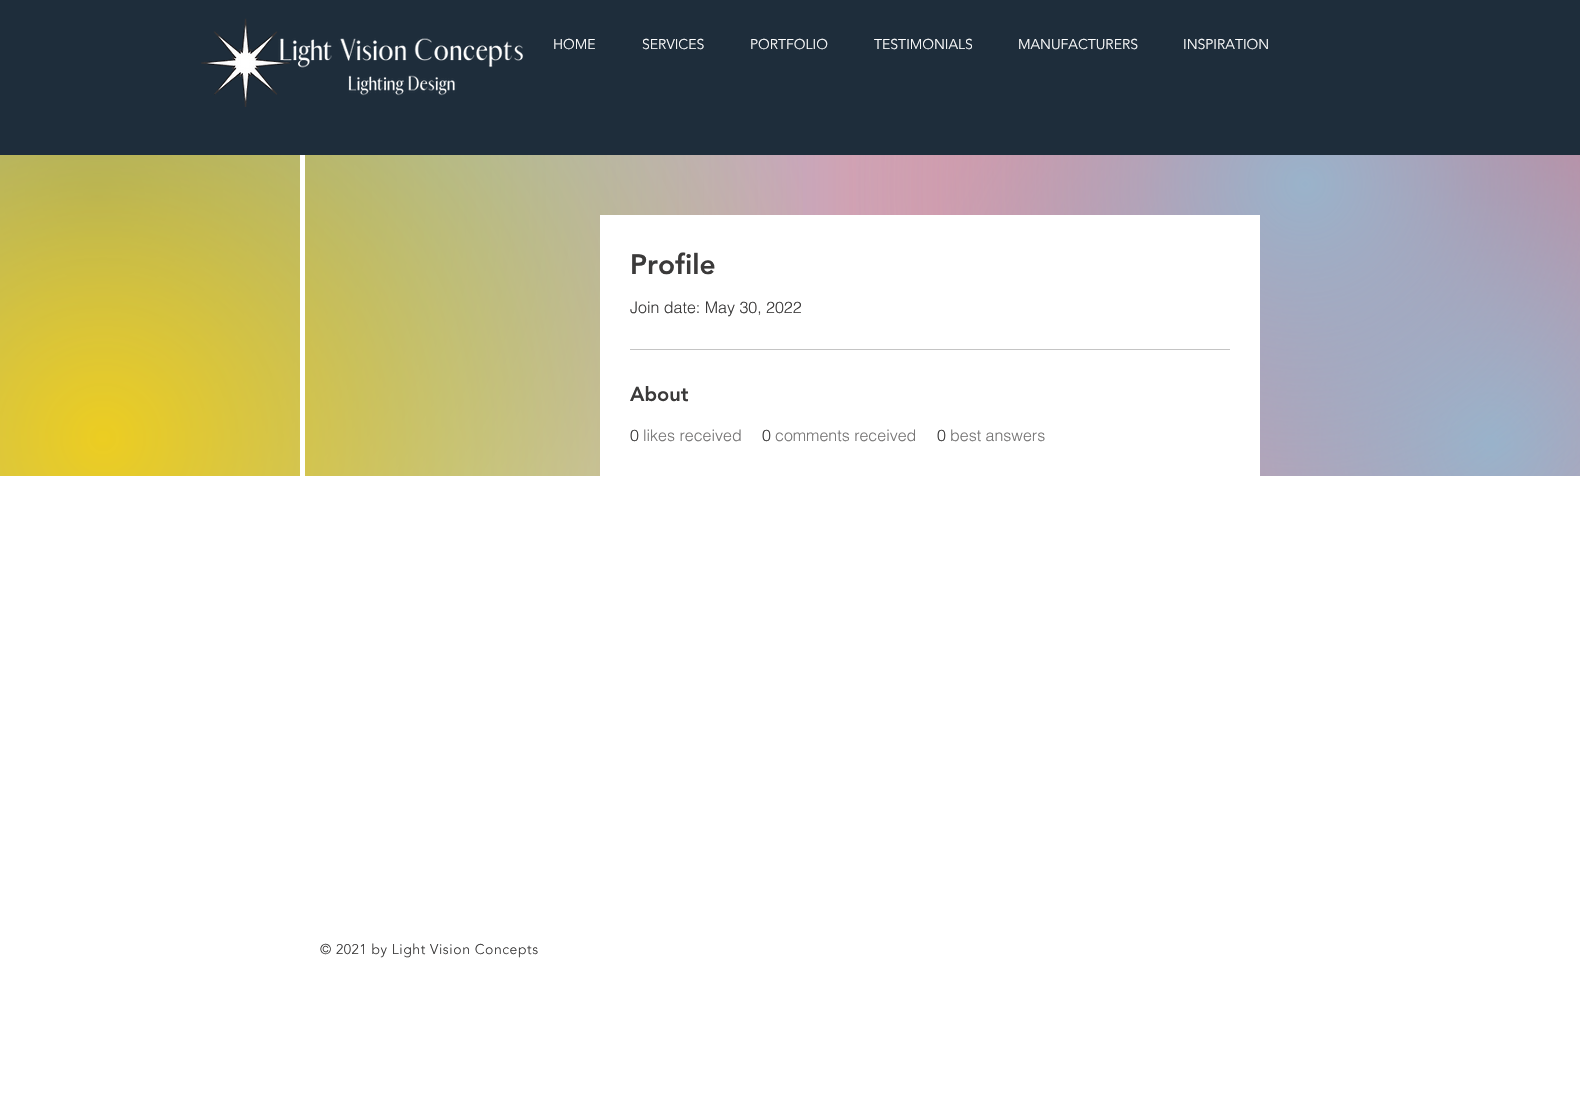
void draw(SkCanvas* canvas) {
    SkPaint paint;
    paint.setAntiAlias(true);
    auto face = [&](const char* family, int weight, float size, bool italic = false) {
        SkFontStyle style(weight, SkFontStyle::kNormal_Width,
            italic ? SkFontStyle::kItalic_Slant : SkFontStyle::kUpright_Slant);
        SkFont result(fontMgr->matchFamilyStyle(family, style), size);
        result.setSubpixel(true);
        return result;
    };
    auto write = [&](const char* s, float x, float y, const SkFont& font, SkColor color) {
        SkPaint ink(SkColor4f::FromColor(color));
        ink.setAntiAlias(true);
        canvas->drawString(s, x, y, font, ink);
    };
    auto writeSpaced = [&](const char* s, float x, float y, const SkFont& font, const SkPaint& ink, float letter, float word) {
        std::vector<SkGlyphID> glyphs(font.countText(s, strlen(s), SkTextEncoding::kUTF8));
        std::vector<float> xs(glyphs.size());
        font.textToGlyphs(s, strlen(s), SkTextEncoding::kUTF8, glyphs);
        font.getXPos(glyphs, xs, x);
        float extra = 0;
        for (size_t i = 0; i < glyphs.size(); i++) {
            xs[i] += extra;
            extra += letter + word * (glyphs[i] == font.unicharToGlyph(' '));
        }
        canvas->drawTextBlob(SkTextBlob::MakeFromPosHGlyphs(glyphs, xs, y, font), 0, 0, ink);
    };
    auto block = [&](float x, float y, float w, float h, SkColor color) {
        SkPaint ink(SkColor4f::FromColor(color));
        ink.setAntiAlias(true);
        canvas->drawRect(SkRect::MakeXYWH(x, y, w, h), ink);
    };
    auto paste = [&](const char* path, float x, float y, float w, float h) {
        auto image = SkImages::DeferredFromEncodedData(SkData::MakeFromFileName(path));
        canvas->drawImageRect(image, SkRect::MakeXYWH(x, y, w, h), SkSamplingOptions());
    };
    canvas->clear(SK_ColorWHITE);
    block(0, 0, 1580, 155, SkColorSetRGB(30, 45, 59));
    paste("pic1.png", 201, 18, 323, 89);
    auto kFont1 = face("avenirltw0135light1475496", 300, 14);
    write("HOME", 553, 49, kFont1, SK_ColorWHITE);
    write("SERVICES", 642, 49, kFont1, SK_ColorWHITE);
    write("PORTFOLIO", 750, 49, kFont1, SK_ColorWHITE);
    write("TESTIMONIALS", 874, 49, kFont1, SK_ColorWHITE);
    write("MANUFACTURERS", 1018, 49, kFont1, SK_ColorWHITE);
    write("INSPIRATION", 1183, 49, kFont1, SK_ColorWHITE);
    {
        const SkColor colors[] = {SkColorSetRGB(255, 52, 71), SK_ColorWHITE};
        const float stops[] = {0, 0.7f};
        paint.setShader(SkGradientShader::MakeRadial({1480, 192}, 1507, colors, stops, 2, SkTileMode::kClamp));
        paint.setAlpha(255);
    }
    canvas->drawRect(SkRect::MakeXYWH(434, 155, 1146, 321), paint);
    {
        const SkColor colors[] = {SkColorSetRGB(91, 134, 176), SkColorSetARGB(0, 91, 134, 176)};
        const float stops[] = {0, 0.7f};
        paint.setShader(SkGradientShader::MakeRadial({97, 196}, 1509, colors, stops, 2, SkTileMode::kClamp));
        paint.setAlpha(255);
    }
    canvas->drawRect(SkRect::MakeXYWH(0, 155, 1134, 321), paint);
    {
        const SkColor colors[] = {SkColorSetARGB(252, 237, 205, 31), SkColorSetARGB(0, 237, 205, 31)};
        const float stops[] = {0, 0.5f};
        paint.setShader(SkGradientShader::MakeRadial({103, 438}, 1504, colors, stops, 2, SkTileMode::kClamp));
        paint.setAlpha(255);
    }
    canvas->drawRect(SkRect::MakeXYWH(0, 155, 803, 321), paint);
    block(300, 155, 5, 321, SK_ColorWHITE);
    {
        const SkColor colors[] = {SkColorSetRGB(153, 178, 202), SkColorSetARGB(0, 153, 178, 202)};
        const float stops[] = {0, 0.4f};
        paint.setShader(SkGradientShader::MakeRadial({1491, 443}, 1518, colors, stops, 2, SkTileMode::kClamp));
        paint.setAlpha(255);
    }
    canvas->drawRect(SkRect::MakeXYWH(943, 155, 637, 321), paint);
    {
        const SkColor colors[] = {SkColorSetRGB(153, 178, 202), SkColorSetARGB(0, 153, 178, 202)};
        const float stops[] = {0, 0.35f};
        paint.setShader(SkGradientShader::MakeRadial({1305, 184}, 1337, colors, stops, 2, SkTileMode::kClamp));
        paint.setAlpha(255);
    }
    canvas->drawRect(SkRect::MakeXYWH(856, 155, 724, 321), paint);
    block(600, 215, 660, 261, SK_ColorWHITE);
    auto kFont2 = face("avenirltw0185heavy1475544", 900, 28);
    write("Profile", 630, 274, kFont2, SkColorSetRGB(59, 58, 58));
    auto kFont3 = face("helvetica", 300, 16);
    write("Join date: May 30, 2022", 630, 313, kFont3, SkColorSetRGB(59, 58, 58));
    block(630, 349, 600, 1, SkColorSetRGB(196, 196, 196));
    auto kFont4 = face("avenirltw0185heavy1475544", 900, 20);
    write("About", 630, 401, kFont4, SkColorSetRGB(59, 58, 58));
    write("0", 630, 441, kFont3, SkColorSetRGB(59, 58, 58));
    write("likes received", 643, 441, kFont3, SkColorSetRGB(118, 117, 117));
    write("0", 762, 441, kFont3, SkColorSetRGB(59, 58, 58));
    write("comments received", 775, 441, kFont3, SkColorSetRGB(118, 117, 117));
    write("0", 937, 441, kFont3, SkColorSetRGB(59, 58, 58));
    write("best answers", 950, 441, kFont3, SkColorSetRGB(118, 117, 117));
    paint.setShader(nullptr);
    paint.setColor(SkColorSetRGB(59, 58, 58));
    writeSpaced("© 2021 by Light Vision Concepts", 320, 954, kFont1, paint, 0.55f, 0);
}
